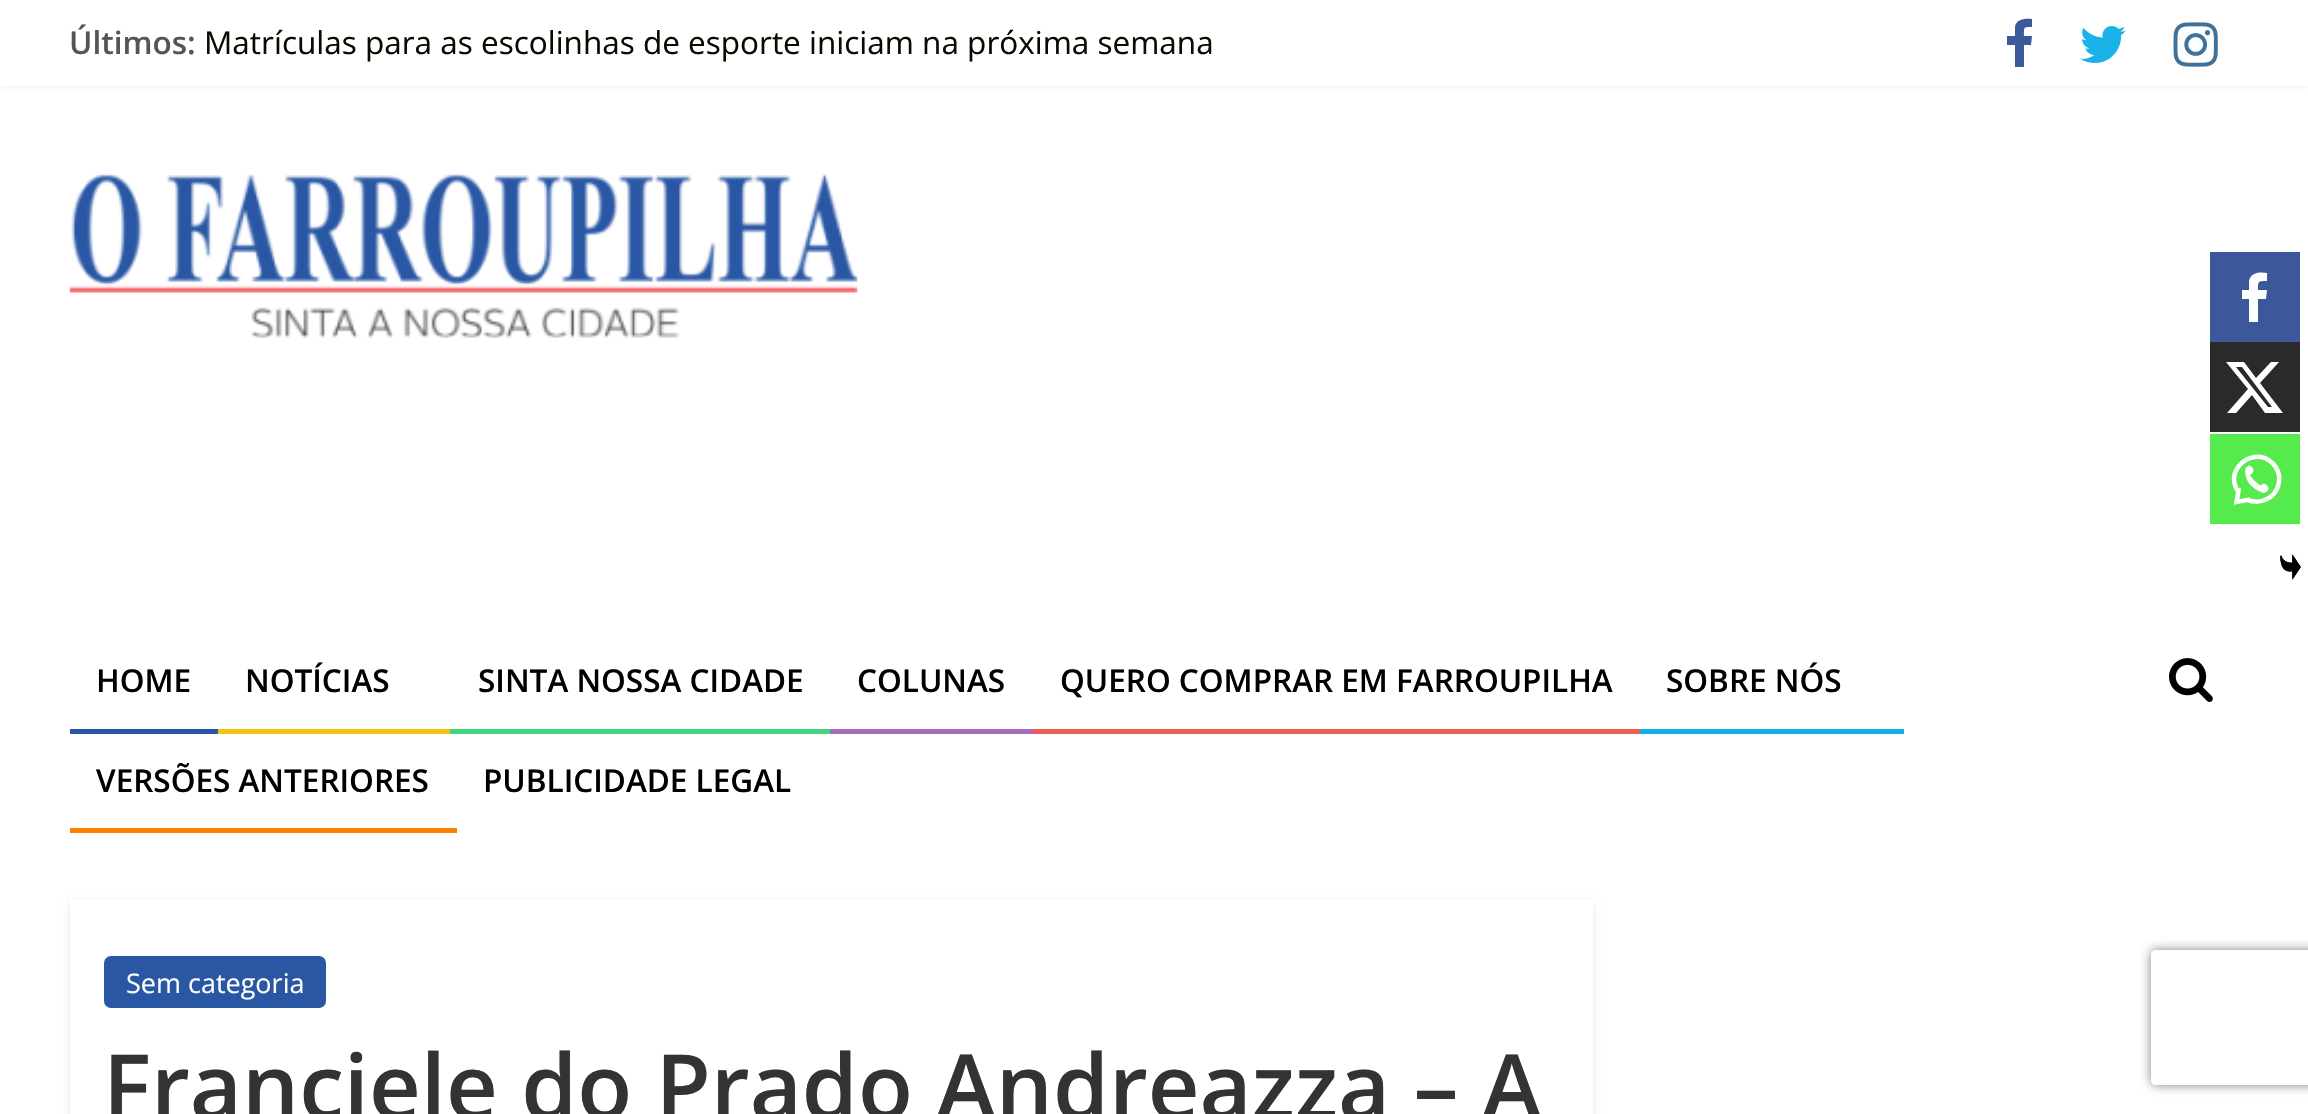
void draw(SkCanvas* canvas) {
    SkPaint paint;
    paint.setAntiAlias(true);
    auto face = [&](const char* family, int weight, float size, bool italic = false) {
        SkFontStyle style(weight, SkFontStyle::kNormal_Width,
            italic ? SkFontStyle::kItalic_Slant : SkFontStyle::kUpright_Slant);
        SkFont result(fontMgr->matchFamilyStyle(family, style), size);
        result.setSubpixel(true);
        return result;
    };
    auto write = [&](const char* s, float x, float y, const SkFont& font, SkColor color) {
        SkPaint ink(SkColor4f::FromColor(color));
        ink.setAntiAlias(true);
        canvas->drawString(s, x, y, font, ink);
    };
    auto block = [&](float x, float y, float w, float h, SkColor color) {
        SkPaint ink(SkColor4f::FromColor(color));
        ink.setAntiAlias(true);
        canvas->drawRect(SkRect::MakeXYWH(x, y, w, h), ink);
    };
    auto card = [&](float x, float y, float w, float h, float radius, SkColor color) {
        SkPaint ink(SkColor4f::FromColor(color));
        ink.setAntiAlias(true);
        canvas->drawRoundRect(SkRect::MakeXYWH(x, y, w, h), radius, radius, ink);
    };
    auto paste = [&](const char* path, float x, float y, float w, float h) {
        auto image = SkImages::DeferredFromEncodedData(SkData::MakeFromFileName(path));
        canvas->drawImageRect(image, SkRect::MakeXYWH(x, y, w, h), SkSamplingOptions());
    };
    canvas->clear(SK_ColorWHITE);
    paint.setColor(SkColorSetARGB(26, 0, 0, 0));
    paint.setMaskFilter(SkMaskFilter::MakeBlur(kNormal_SkBlurStyle, 2));
    canvas->drawRect(SkRect::MakeXYWH(0, 0, 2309, 86), paint);
    paint.setMaskFilter(nullptr);
    block(0, 0, 2308, 86, SK_ColorWHITE);
    auto kFont1 = face("Open Sans", 600, 31.5f);
    write("Últimos:", 69, 54, kFont1, SkColorSetRGB(85, 85, 85));
    auto kFont2 = face("Open Sans", 400, 31.5f);
    write("Matrículas para as escolinhas de esporte iniciam na próxima semana", 204, 54, kFont2, SkColorSetRGB(10, 10, 0));
    paint.setColor(SkColorSetRGB(59, 90, 155));
    canvas->drawPath(SkPathBuilder().moveTo(2032, 19).lineTo(2032, 27).cubicTo(2023, 27, 2024, 27, 2024, 36).lineTo(2032, 36).lineTo(2031, 45).lineTo(2024, 45).lineTo(2024, 67).lineTo(2015, 67).lineTo(2015, 45).lineTo(2007, 45).lineTo(2007, 36).lineTo(2015, 36).lineTo(2015, 27).cubicTo(2016, 19, 2025, 18, 2032, 19).close().detach(), paint);
    paste("pic1.png", 2080, 26, 46, 37);
    paste("pic2.png", 2173, 22, 45, 45);
    paste("pic3.png", 69, 173, 789, 165);
    block(70, 729, 148, 5, SkColorSetRGB(41, 87, 164));
    write("HOME", 96, 692, kFont1, SK_ColorBLACK);
    block(218, 729, 232, 5, SkColorSetRGB(241, 196, 15));
    write("NOTÍCIAS", 245, 692, kFont1, SK_ColorBLACK);
    block(450, 729, 380, 5, SkColorSetRGB(64, 212, 126));
    write("SINTA NOSSA CIDADE", 478, 692, kFont1, SK_ColorBLACK);
    block(830, 729, 203, 5, SkColorSetRGB(166, 107, 190));
    write("COLUNAS", 857, 692, kFont1, SK_ColorBLACK);
    block(1033, 729, 607, 5, SkColorSetRGB(234, 97, 83));
    write("QUERO COMPRAR EM FARROUPILHA", 1060, 692, kFont1, SK_ColorBLACK);
    block(1640, 729, 264, 5, SkColorSetRGB(19, 173, 230));
    write("SOBRE NÓS", 1666, 692, kFont1, SK_ColorBLACK);
    block(70, 828, 387, 5, SkColorSetRGB(255, 127, 0));
    write("VERSÕES ANTERIORES", 96, 792, kFont1, SK_ColorBLACK);
    write("PUBLICIDADE LEGAL", 483, 792, kFont1, SK_ColorBLACK);
    paste("pic4.png", 2169, 658, 44, 44);
    canvas->save();
    canvas->clipPath(SkPathBuilder(SkPathFillType::kEvenOdd).moveTo(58, 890).lineTo(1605, 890).lineTo(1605, 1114).lineTo(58, 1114).close().moveTo(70, 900).lineTo(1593, 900).lineTo(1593, 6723).lineTo(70, 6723).close().detach(), true);
    paint.setColor(SkColorSetARGB(26, 0, 0, 0));
    paint.setMaskFilter(SkMaskFilter::MakeBlur(kNormal_SkBlurStyle, 3.5f));
    canvas->drawRect(SkRect::MakeXYWH(70, 902, 1523, 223), paint);
    paint.setMaskFilter(nullptr);
    canvas->restore();
    block(2210, 252, 90, 90, SkColorSetRGB(60, 88, 154));
    paint.setColor(SK_ColorWHITE);
    canvas->drawPath(SkPathBuilder().moveTo(2258, 322).lineTo(2258, 299).lineTo(2266, 299).lineTo(2267, 290).lineTo(2258, 290).cubicTo(2258, 281, 2258, 281, 2267, 281).lineTo(2267, 273).cubicTo(2260, 272, 2251, 272, 2249, 281).lineTo(2249, 290).lineTo(2242, 290).lineTo(2242, 299).lineTo(2249, 299).lineTo(2249, 322).close().detach(), paint);
    block(2210, 342, 90, 90, SkColorSetRGB(42, 42, 42));
    canvas->drawPath(SkPathBuilder().moveTo(2271, 362).lineTo(2279, 362).lineTo(2260, 383).lineTo(2283, 413).lineTo(2265, 413).lineTo(2252, 395).lineTo(2236, 413).lineTo(2227, 413).lineTo(2248, 389).lineTo(2226, 362).lineTo(2244, 362).lineTo(2256, 378).close().moveTo(2268, 407).lineTo(2272, 407).lineTo(2242, 367).lineTo(2236, 367).close().detach(), paint);
    block(2210, 434, 90, 90, SkColorSetRGB(85, 235, 76));
    paint.setStyle(SkPaint::kStroke_Style);
    paint.setStrokeWidth(4.5f);
    canvas->drawPath(SkPathBuilder().moveTo(2249, 500.5f).cubicTo(2261, 504.5f, 2274, 498, 2278, 486.5f).cubicTo(2280, 480, 2279.5f, 473, 2276, 467.5f).cubicTo(2259.5f, 441.5f, 2221, 467.5f, 2238.5f, 492).moveTo(2239, 488).lineTo(2236.5f, 502).lineTo(2250, 499.5f).detach(), paint);
    paint.setStyle(SkPaint::kFill_Style);
    canvas->drawPath(SkPathBuilder().moveTo(2245.5f, 468).cubicTo(2244, 480, 2250, 488, 2263.5f, 493).cubicTo(2275, 490.5f, 2263.5f, 479, 2261, 486).cubicTo(2255, 481.5f, 2251.5f, 478, 2250, 475).cubicTo(2259, 470, 2248, 463.5f, 2248, 466).detach(), paint);
    paste("pic6.png", 2280, 554, 21, 26);
    paste("pic5.png", 2280, 554, 21, 26);
    card(104, 956, 222, 52, 7, SkColorSetRGB(41, 87, 164));
    auto kFont3 = face("Open Sans", 400, 27);
    write("Sem categoria", 126, 993, kFont3, SK_ColorWHITE);
    auto kFont4 = face("Open Sans", 600, 90);
    write("Franciele do Prado Andreazza – A", 103, 1119, kFont4, SkColorSetRGB(51, 51, 51));
    canvas->save();
    canvas->clipPath(SkPathBuilder(SkPathFillType::kEvenOdd).moveTo(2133, 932).lineTo(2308, 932).lineTo(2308, 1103).lineTo(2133, 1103).close().moveTo(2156, 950).lineTo(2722, 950).cubicTo(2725, 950, 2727, 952, 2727, 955).lineTo(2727, 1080).cubicTo(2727, 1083, 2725, 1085, 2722, 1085).lineTo(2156, 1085).cubicTo(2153, 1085, 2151, 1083, 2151, 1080).lineTo(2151, 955).cubicTo(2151, 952, 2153, 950, 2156, 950).close().detach(), true);
    paint.setColor(SkColorSetRGB(128, 128, 128));
    paint.setMaskFilter(SkMaskFilter::MakeBlur(kNormal_SkBlurStyle, 5.5f));
    canvas->drawRoundRect(SkRect::MakeXYWH(2151, 950, 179, 135), 5, 5, paint);
    paint.setMaskFilter(nullptr);
    canvas->restore();
}
